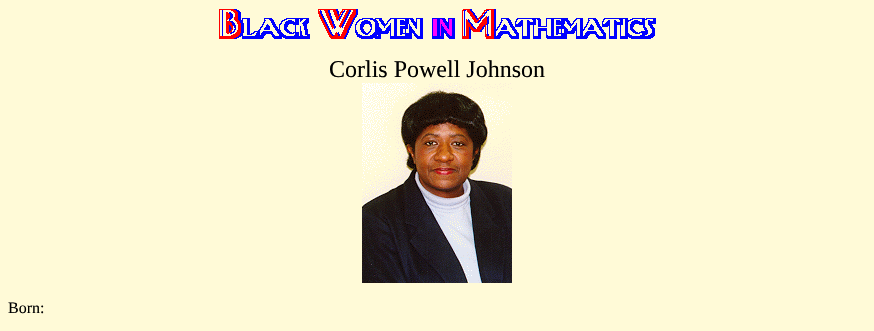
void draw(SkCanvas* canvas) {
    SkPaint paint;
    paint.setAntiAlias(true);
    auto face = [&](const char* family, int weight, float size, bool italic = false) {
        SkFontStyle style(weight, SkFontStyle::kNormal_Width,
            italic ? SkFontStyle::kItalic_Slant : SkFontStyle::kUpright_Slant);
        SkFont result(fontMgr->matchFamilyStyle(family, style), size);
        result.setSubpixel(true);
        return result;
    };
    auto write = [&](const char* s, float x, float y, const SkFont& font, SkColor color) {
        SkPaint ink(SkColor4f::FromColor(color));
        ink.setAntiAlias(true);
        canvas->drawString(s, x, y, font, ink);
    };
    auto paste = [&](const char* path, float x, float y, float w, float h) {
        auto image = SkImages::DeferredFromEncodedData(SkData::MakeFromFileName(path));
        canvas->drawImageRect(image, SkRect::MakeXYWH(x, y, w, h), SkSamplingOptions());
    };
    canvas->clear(SkColorSetRGB(255, 250, 215));
    paste("pic1.png", 219, 9, 437, 30);
    auto kFont1 = face("Liberation Serif", 400, 24);
    write("Corlis Powell Johnson", 329, 77, kFont1, SK_ColorBLACK);
    paste("pic2.png", 362, 83, 150, 200);
    auto kFont2 = face("Liberation Serif", 400, 16);
    write("Born:", 8, 313, kFont2, SK_ColorBLACK);
}
